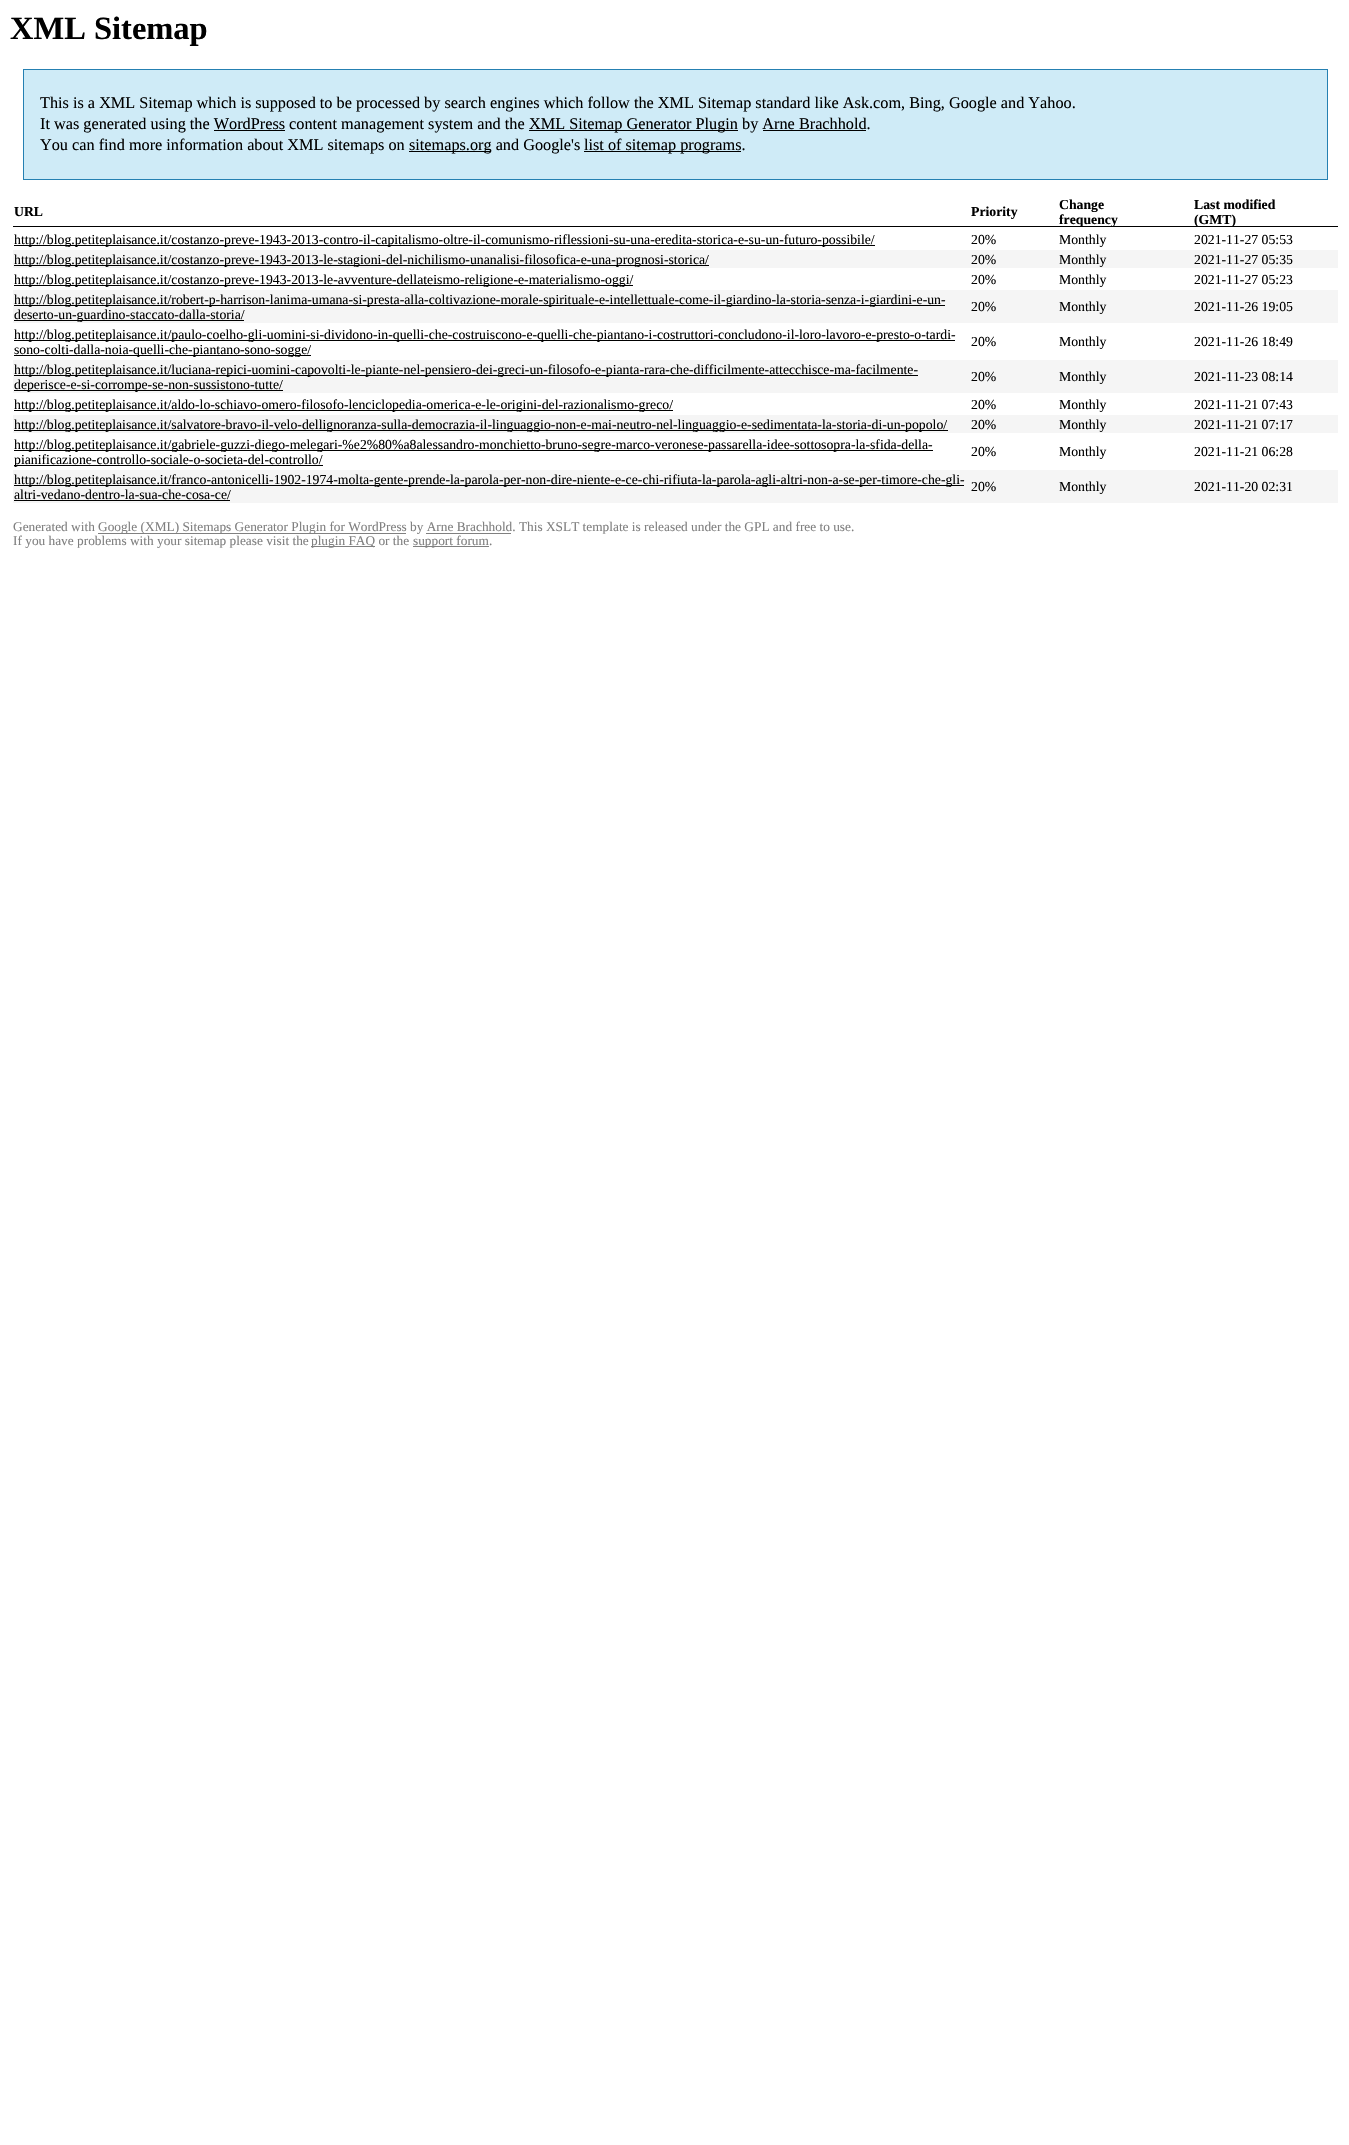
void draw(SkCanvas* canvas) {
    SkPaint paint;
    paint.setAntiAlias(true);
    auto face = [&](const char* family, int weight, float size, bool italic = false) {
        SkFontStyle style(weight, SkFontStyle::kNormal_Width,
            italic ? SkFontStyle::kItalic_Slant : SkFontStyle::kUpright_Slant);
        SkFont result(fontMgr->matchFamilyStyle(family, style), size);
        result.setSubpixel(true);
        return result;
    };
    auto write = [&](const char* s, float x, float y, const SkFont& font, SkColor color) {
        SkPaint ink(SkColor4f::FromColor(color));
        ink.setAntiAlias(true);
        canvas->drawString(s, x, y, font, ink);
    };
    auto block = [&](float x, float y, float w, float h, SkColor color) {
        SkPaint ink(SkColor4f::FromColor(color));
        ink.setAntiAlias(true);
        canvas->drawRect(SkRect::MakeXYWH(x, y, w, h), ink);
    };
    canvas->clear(SK_ColorWHITE);
    auto kFont1 = face("Liberation Serif", 700, 32.5f);
    write("XML Sitemap", 10, 39, kFont1, SK_ColorBLACK);
    paint.setColor(SkColorSetRGB(207, 235, 247));
    canvas->drawRect(SkRect::MakeXYWH(23.5f, 69.5f, 1304, 110), paint);
    paint.setStyle(SkPaint::kStroke_Style);
    paint.setStrokeWidth(1);
    paint.setColor(SkColorSetRGB(37, 128, 178));
    canvas->drawRect(SkRect::MakeXYWH(23.5f, 69.5f, 1304, 110), paint);
    auto kFont2 = face("Liberation Serif", 400, 16.25f);
    write("This is a XML Sitemap which is supposed to be processed by search engines which follow the XML Sitemap standard like Ask.com, Bing, Google and Yahoo.", 40, 108, kFont2, SK_ColorBLACK);
    write("It was generated using the WordPress content management system and the", 40, 129, kFont2, SK_ColorBLACK);
    block(529, 130, 209, 1, SK_ColorBLACK);
    write("XML Sitemap Generator Plugin by Arne Brachhold.", 529, 129, kFont2, SK_ColorBLACK);
    block(214, 130, 71, 1, SK_ColorBLACK);
    block(763, 130, 103, 1, SK_ColorBLACK);
    write("You can find more information about XML sitemaps on", 40, 150, kFont2, SK_ColorBLACK);
    block(409, 151, 82, 1, SK_ColorBLACK);
    write("sitemaps.org and Google's", 409, 150, kFont2, SK_ColorBLACK);
    block(584, 151, 157, 1, SK_ColorBLACK);
    write("list of sitemap programs.", 584, 150, kFont2, SK_ColorBLACK);
    block(13, 226, 1325, 1, SK_ColorBLACK);
    auto kFont3 = face("Liberation Serif", 700, 13.75f);
    write("URL", 14, 216, kFont3, SK_ColorBLACK);
    write("Priority", 971, 216, kFont3, SK_ColorBLACK);
    write("Change", 1059, 209, kFont3, SK_ColorBLACK);
    write("frequency", 1059, 224, kFont3, SK_ColorBLACK);
    write("Last modified", 1194, 209, kFont3, SK_ColorBLACK);
    write("(GMT)", 1194, 224, kFont3, SK_ColorBLACK);
    block(14, 245, 861, 1, SK_ColorBLACK);
    auto kFont4 = face("Liberation Serif", 400, 13.75f);
    write("http://blog.petiteplaisance.it/costanzo-preve-1943-2013-contro-il-capitalismo-oltre-il-comunismo-riflessioni-su-una-eredita-storica-e-su-un-futuro-possibile/", 14, 244, kFont4, SK_ColorBLACK);
    write("20%", 971, 244, kFont4, SK_ColorBLACK);
    write("Monthly", 1059, 244, kFont4, SK_ColorBLACK);
    write("2021-11-27 05:53", 1194, 244, kFont4, SK_ColorBLACK);
    block(13, 250, 1325, 18, SkColorSetRGB(245, 245, 245));
    block(14, 265, 695, 1, SK_ColorBLACK);
    write("http://blog.petiteplaisance.it/costanzo-preve-1943-2013-le-stagioni-del-nichilismo-unanalisi-filosofica-e-una-prognosi-storica/", 14, 264, kFont4, SK_ColorBLACK);
    write("20%", 971, 264, kFont4, SK_ColorBLACK);
    write("Monthly", 1059, 264, kFont4, SK_ColorBLACK);
    write("2021-11-27 05:35", 1194, 264, kFont4, SK_ColorBLACK);
    block(14, 285, 619, 1, SK_ColorBLACK);
    write("http://blog.petiteplaisance.it/costanzo-preve-1943-2013-le-avventure-dellateismo-religione-e-materialismo-oggi/", 14, 284, kFont4, SK_ColorBLACK);
    write("20%", 971, 284, kFont4, SK_ColorBLACK);
    write("Monthly", 1059, 284, kFont4, SK_ColorBLACK);
    write("2021-11-27 05:23", 1194, 284, kFont4, SK_ColorBLACK);
    block(13, 290, 1325, 33, SkColorSetRGB(245, 245, 245));
    block(14, 305, 931, 1, SK_ColorBLACK);
    write("http://blog.petiteplaisance.it/robert-p-harrison-lanima-umana-si-presta-alla-coltivazione-morale-spirituale-e-intellettuale-come-il-giardino-la-storia-senza-i-giardini-e-un-", 14, 304, kFont4, SK_ColorBLACK);
    block(14, 320, 230, 1, SK_ColorBLACK);
    write("deserto-un-guardino-staccato-dalla-storia/", 14, 319, kFont4, SK_ColorBLACK);
    write("20%", 971, 311, kFont4, SK_ColorBLACK);
    write("Monthly", 1059, 311, kFont4, SK_ColorBLACK);
    write("2021-11-26 19:05", 1194, 311, kFont4, SK_ColorBLACK);
    block(14, 340, 941, 1, SK_ColorBLACK);
    write("http://blog.petiteplaisance.it/paulo-coelho-gli-uomini-si-dividono-in-quelli-che-costruiscono-e-quelli-che-piantano-i-costruttori-concludono-il-loro-lavoro-e-presto-o-tardi-", 14, 339, kFont4, SK_ColorBLACK);
    block(14, 355, 297, 1, SK_ColorBLACK);
    write("sono-colti-dalla-noia-quelli-che-piantano-sono-sogge/", 14, 354, kFont4, SK_ColorBLACK);
    write("20%", 971, 346, kFont4, SK_ColorBLACK);
    write("Monthly", 1059, 346, kFont4, SK_ColorBLACK);
    write("2021-11-26 18:49", 1194, 346, kFont4, SK_ColorBLACK);
    block(13, 360, 1325, 33, SkColorSetRGB(245, 245, 245));
    block(14, 375, 904, 1, SK_ColorBLACK);
    write("http://blog.petiteplaisance.it/luciana-repici-uomini-capovolti-le-piante-nel-pensiero-dei-greci-un-filosofo-e-pianta-rara-che-difficilmente-attecchisce-ma-facilmente-", 14, 374, kFont4, SK_ColorBLACK);
    block(14, 390, 269, 1, SK_ColorBLACK);
    write("deperisce-e-si-corrompe-se-non-sussistono-tutte/", 14, 389, kFont4, SK_ColorBLACK);
    write("20%", 971, 381, kFont4, SK_ColorBLACK);
    write("Monthly", 1059, 381, kFont4, SK_ColorBLACK);
    write("2021-11-23 08:14", 1194, 381, kFont4, SK_ColorBLACK);
    block(14, 410, 659, 1, SK_ColorBLACK);
    write("http://blog.petiteplaisance.it/aldo-lo-schiavo-omero-filosofo-lenciclopedia-omerica-e-le-origini-del-razionalismo-greco/", 14, 409, kFont4, SK_ColorBLACK);
    write("20%", 971, 409, kFont4, SK_ColorBLACK);
    write("Monthly", 1059, 409, kFont4, SK_ColorBLACK);
    write("2021-11-21 07:43", 1194, 409, kFont4, SK_ColorBLACK);
    block(13, 415, 1325, 18, SkColorSetRGB(245, 245, 245));
    block(14, 430, 934, 1, SK_ColorBLACK);
    write("http://blog.petiteplaisance.it/salvatore-bravo-il-velo-dellignoranza-sulla-democrazia-il-linguaggio-non-e-mai-neutro-nel-linguaggio-e-sedimentata-la-storia-di-un-popolo/", 14, 429, kFont4, SK_ColorBLACK);
    write("20%", 971, 429, kFont4, SK_ColorBLACK);
    write("Monthly", 1059, 429, kFont4, SK_ColorBLACK);
    write("2021-11-21 07:17", 1194, 429, kFont4, SK_ColorBLACK);
    block(14, 450, 919, 1, SK_ColorBLACK);
    write("http://blog.petiteplaisance.it/gabriele-guzzi-diego-melegari-%e2%80%a8alessandro-monchietto-bruno-segre-marco-veronese-passarella-idee-sottosopra-la-sfida-della-", 14, 449, kFont4, SK_ColorBLACK);
    block(14, 465, 309, 1, SK_ColorBLACK);
    write("pianificazione-controllo-sociale-o-societa-del-controllo/", 14, 464, kFont4, SK_ColorBLACK);
    write("20%", 971, 456, kFont4, SK_ColorBLACK);
    write("Monthly", 1059, 456, kFont4, SK_ColorBLACK);
    write("2021-11-21 06:28", 1194, 456, kFont4, SK_ColorBLACK);
    block(13, 470, 1325, 33, SkColorSetRGB(245, 245, 245));
    block(14, 485, 950, 1, SK_ColorBLACK);
    write("http://blog.petiteplaisance.it/franco-antonicelli-1902-1974-molta-gente-prende-la-parola-per-non-dire-niente-e-ce-chi-rifiuta-la-parola-agli-altri-non-a-se-per-timore-che-gli-", 14, 484, kFont4, SK_ColorBLACK);
    write("altri-vedano-dentro-la-sua-che-cosa-ce/", 14, 499, kFont4, SK_ColorBLACK);
    block(14, 500, 216, 1, SK_ColorBLACK);
    write("20%", 971, 491, kFont4, SK_ColorBLACK);
    write("Monthly", 1059, 491, kFont4, SK_ColorBLACK);
    write("2021-11-20 02:31", 1194, 491, kFont4, SK_ColorBLACK);
    auto kFont5 = face("Liberation Serif", 400, 13.33f);
    write("Generated with", 13, 531, kFont5, SkColorSetRGB(128, 128, 128));
    block(98, 533, 308, 1, SkColorSetRGB(128, 128, 128));
    write("Google (XML) Sitemaps Generator Plugin for WordPress by Arne Brachhold. This XSLT template is released under the GPL and free to use.", 98, 531, kFont5, SkColorSetRGB(128, 128, 128));
    block(426, 533, 85, 1, SkColorSetRGB(128, 128, 128));
    write("If you have problems with your sitemap please visit the", 13, 545, kFont5, SkColorSetRGB(128, 128, 128));
    block(311, 546, 64, 1, SkColorSetRGB(128, 128, 128));
    write("plugin FAQ or the", 311, 545, kFont5, SkColorSetRGB(128, 128, 128));
    block(413, 546, 76, 1, SkColorSetRGB(128, 128, 128));
    write("support forum.", 413, 545, kFont5, SkColorSetRGB(128, 128, 128));
}
